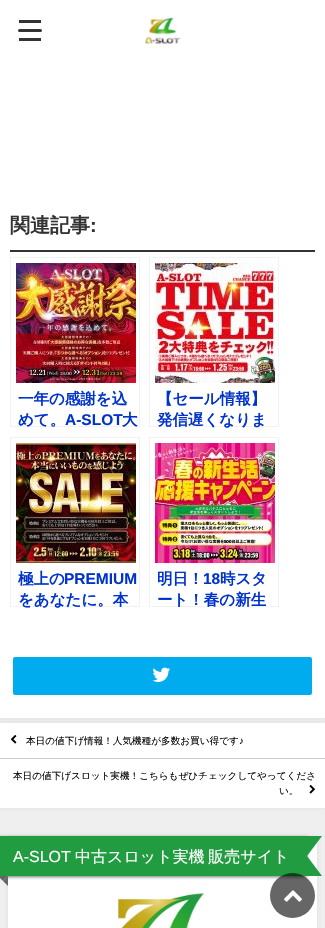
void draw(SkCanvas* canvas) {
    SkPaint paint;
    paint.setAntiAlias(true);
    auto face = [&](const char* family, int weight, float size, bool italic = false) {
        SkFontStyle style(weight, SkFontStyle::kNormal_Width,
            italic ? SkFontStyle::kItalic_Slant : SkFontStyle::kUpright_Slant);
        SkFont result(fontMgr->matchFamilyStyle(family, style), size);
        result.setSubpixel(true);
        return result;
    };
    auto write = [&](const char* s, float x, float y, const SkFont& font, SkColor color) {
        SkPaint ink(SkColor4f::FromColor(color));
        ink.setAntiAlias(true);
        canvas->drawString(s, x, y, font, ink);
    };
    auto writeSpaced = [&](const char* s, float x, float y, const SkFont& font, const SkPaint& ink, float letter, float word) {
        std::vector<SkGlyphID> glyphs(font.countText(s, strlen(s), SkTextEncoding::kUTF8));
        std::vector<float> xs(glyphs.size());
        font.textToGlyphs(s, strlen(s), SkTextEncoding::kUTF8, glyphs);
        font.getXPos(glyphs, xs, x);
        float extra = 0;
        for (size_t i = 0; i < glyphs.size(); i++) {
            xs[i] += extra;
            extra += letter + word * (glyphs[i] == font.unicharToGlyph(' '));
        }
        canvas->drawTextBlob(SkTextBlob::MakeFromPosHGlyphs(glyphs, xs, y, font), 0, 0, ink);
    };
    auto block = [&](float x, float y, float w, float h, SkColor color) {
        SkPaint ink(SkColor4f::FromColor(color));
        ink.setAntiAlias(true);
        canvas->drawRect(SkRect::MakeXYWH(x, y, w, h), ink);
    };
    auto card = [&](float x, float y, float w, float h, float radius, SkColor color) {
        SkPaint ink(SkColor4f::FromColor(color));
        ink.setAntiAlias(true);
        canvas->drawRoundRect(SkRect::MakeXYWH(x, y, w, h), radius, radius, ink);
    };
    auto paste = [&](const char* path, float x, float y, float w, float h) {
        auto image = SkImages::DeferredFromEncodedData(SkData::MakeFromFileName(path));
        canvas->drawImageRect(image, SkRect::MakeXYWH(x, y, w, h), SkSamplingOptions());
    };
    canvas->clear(SkColorSetRGB(239, 239, 239));
    paint.setColor(SkColorSetARGB(51, 150, 150, 150));
    paint.setMaskFilter(SkMaskFilter::MakeBlur(kNormal_SkBlurStyle, 2.5f));
    canvas->drawRect(SkRect::MakeXYWH(0, 723, 325, 85), paint);
    paint.setMaskFilter(nullptr);
    block(0, 723, 325, 85, SK_ColorWHITE);
    paint.setMaskFilter(SkMaskFilter::MakeBlur(kNormal_SkBlurStyle, 2.5f));
    canvas->drawRect(SkRect::MakeXYWH(0, -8, 325, 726), paint);
    paint.setMaskFilter(nullptr);
    block(0, 0, 325, 718, SK_ColorWHITE);
    block(19, 20, 22, 3, SkColorSetRGB(51, 51, 51));
    card(18, 29, 24, 3, 1.5f, SkColorSetRGB(51, 51, 51));
    block(19, 38, 22, 3, SkColorSetRGB(51, 51, 51));
    paste("pic1.png", 144, 17, 37, 27);
    block(10, 250, 305, 2, SkColorSetRGB(51, 51, 51));
    auto kFont1 = face("WenQuanYi Zen Hei", 700, 20);
    write("関連記事", 10, 232, kFont1, SkColorSetRGB(51, 51, 51));
    auto kFont2 = face("Liberation Sans", 700, 20);
    write(":", 90, 232, kFont2, SkColorSetRGB(51, 51, 51));
    paint.setStyle(SkPaint::kStroke_Style);
    paint.setStrokeWidth(1);
    paint.setColor(SkColorSetRGB(242, 242, 242));
    canvas->drawRect(SkRect::MakeXYWH(10.5f, 257.5f, 129, 169), paint);
    paste("pic2.png", 16, 263, 120, 120);
    auto kFont3 = face("WenQuanYi Zen Hei", 700, 15.5f);
    write("一年の感謝を込", 18, 404, kFont3, SkColorSetRGB(0, 51, 204));
    write("めて。", 18, 425, kFont3, SkColorSetRGB(0, 51, 204));
    auto kFont4 = face("Liberation Sans", 700, 15.5f);
    write("A-SLOT", 65, 425, kFont4, SkColorSetRGB(0, 51, 204));
    write("大", 122, 425, kFont3, SkColorSetRGB(0, 51, 204));
    canvas->drawRect(SkRect::MakeXYWH(149.5f, 257.5f, 129, 169), paint);
    paste("pic3.png", 155, 263, 120, 120);
    write("【セール情報】", 157, 404, kFont3, SkColorSetRGB(0, 51, 204));
    write("発信遅くなりま", 157, 425, kFont3, SkColorSetRGB(0, 51, 204));
    canvas->drawRect(SkRect::MakeXYWH(10.5f, 437.5f, 129, 169), paint);
    paste("pic4.png", 16, 443, 120, 120);
    write("極上の", 18, 584, kFont3, SkColorSetRGB(0, 51, 204));
    write("PREMIUM", 64, 584, kFont4, SkColorSetRGB(0, 51, 204));
    write("をあなたに。本", 18, 605, kFont3, SkColorSetRGB(0, 51, 204));
    canvas->drawRect(SkRect::MakeXYWH(149.5f, 437.5f, 129, 169), paint);
    paste("pic5.png", 155, 443, 120, 120);
    write("明日！", 157, 584, kFont3, SkColorSetRGB(0, 51, 204));
    write("18", 203, 584, kFont4, SkColorSetRGB(0, 51, 204));
    write("時スタ", 220, 584, kFont3, SkColorSetRGB(0, 51, 204));
    write("ート！春の新生", 157, 605, kFont3, SkColorSetRGB(0, 51, 204));
    paint.setStyle(SkPaint::kFill_Style);
    paint.setColor(SkColorSetRGB(0, 172, 238));
    canvas->drawRoundRect(SkRect::MakeXYWH(14, 658, 297, 36), 1, 1, paint);
    paint.setStyle(SkPaint::kStroke_Style);
    paint.setStrokeWidth(2);
    canvas->drawRoundRect(SkRect::MakeXYWH(14, 658, 297, 36), 1, 1, paint);
    paste("pic6.png", 152, 667, 19, 15);
    paste("pic7.png", 10, 735, 7, 9);
    auto kFont5 = face("WenQuanYi Zen Hei", 500, 9.6f);
    write("本日の値下げ情報！人気機種が多数お買い得です", 26, 744, kFont5, SK_ColorBLACK);
    auto kFont6 = face("Liberation Sans", 400, 9.6f);
    write("♪", 239, 744, kFont6, SK_ColorBLACK);
    block(0, 758, 325, 1, SkColorSetRGB(204, 204, 204));
    write("本日の値下げスロット実機！こちらもぜひチェックしてやってくださ", 13, 779, kFont5, SK_ColorBLACK);
    write("い。", 279, 794, kFont5, SK_ColorBLACK);
    paste("pic8.png", 309, 785, 6, 9);
    paint.setStyle(SkPaint::kFill_Style);
    paint.setColor(SkColorSetARGB(51, 150, 150, 150));
    paint.setMaskFilter(SkMaskFilter::MakeBlur(kNormal_SkBlurStyle, 2.5f));
    canvas->drawRect(SkRect::MakeXYWH(8, 836, 309, 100), paint);
    paint.setMaskFilter(nullptr);
    block(8, 842, 309, 86, SK_ColorWHITE);
    paint.setColor(SkColorSetRGB(119, 119, 119));
    paint.setMaskFilter(SkMaskFilter::MakeBlur(kNormal_SkBlurStyle, 1.5f));
    canvas->drawRect(SkRect::MakeXYWH(-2, 837, 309, 40), paint);
    paint.setMaskFilter(nullptr);
    block(0, 836, 307, 40, SkColorSetRGB(33, 156, 65));
    auto kFont7 = face("Liberation Sans", 400, 16);
    write("A-SLOT", 13, 862, kFont7, SK_ColorWHITE);
    auto kFont8 = face("WenQuanYi Zen Hei", 500, 16);
    paint.setColor(SK_ColorWHITE);
    writeSpaced("中古スロット実機 販売サイト", 75, 862, kFont8, paint, 0, -1);
    paint.setColor(SkColorSetRGB(33, 156, 65));
    canvas->drawPath(SkPathBuilder().moveTo(307, 836).lineTo(322, 836).lineTo(307, 856).close().moveTo(322, 876).lineTo(307, 876).lineTo(307, 856).close().detach(), paint);
    paint.setColor(SkColorSetRGB(102, 102, 102));
    canvas->drawPath(SkPathBuilder().moveTo(-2, 876).lineTo(8, 876).lineTo(3, 881).close().detach(), paint);
    canvas->drawPath(SkPathBuilder().moveTo(8, 876).lineTo(8, 886).lineTo(3, 881).close().detach(), paint);
    paste("pic9.png", 117, 893, 89, 35);
    paint.setColor(SkColorSetARGB(153, 0, 0, 0));
    canvas->drawCircle(292.5f, 895.5f, 22.5f, paint);
    paste("pic10.png", 284, 890, 18, 12);
}
